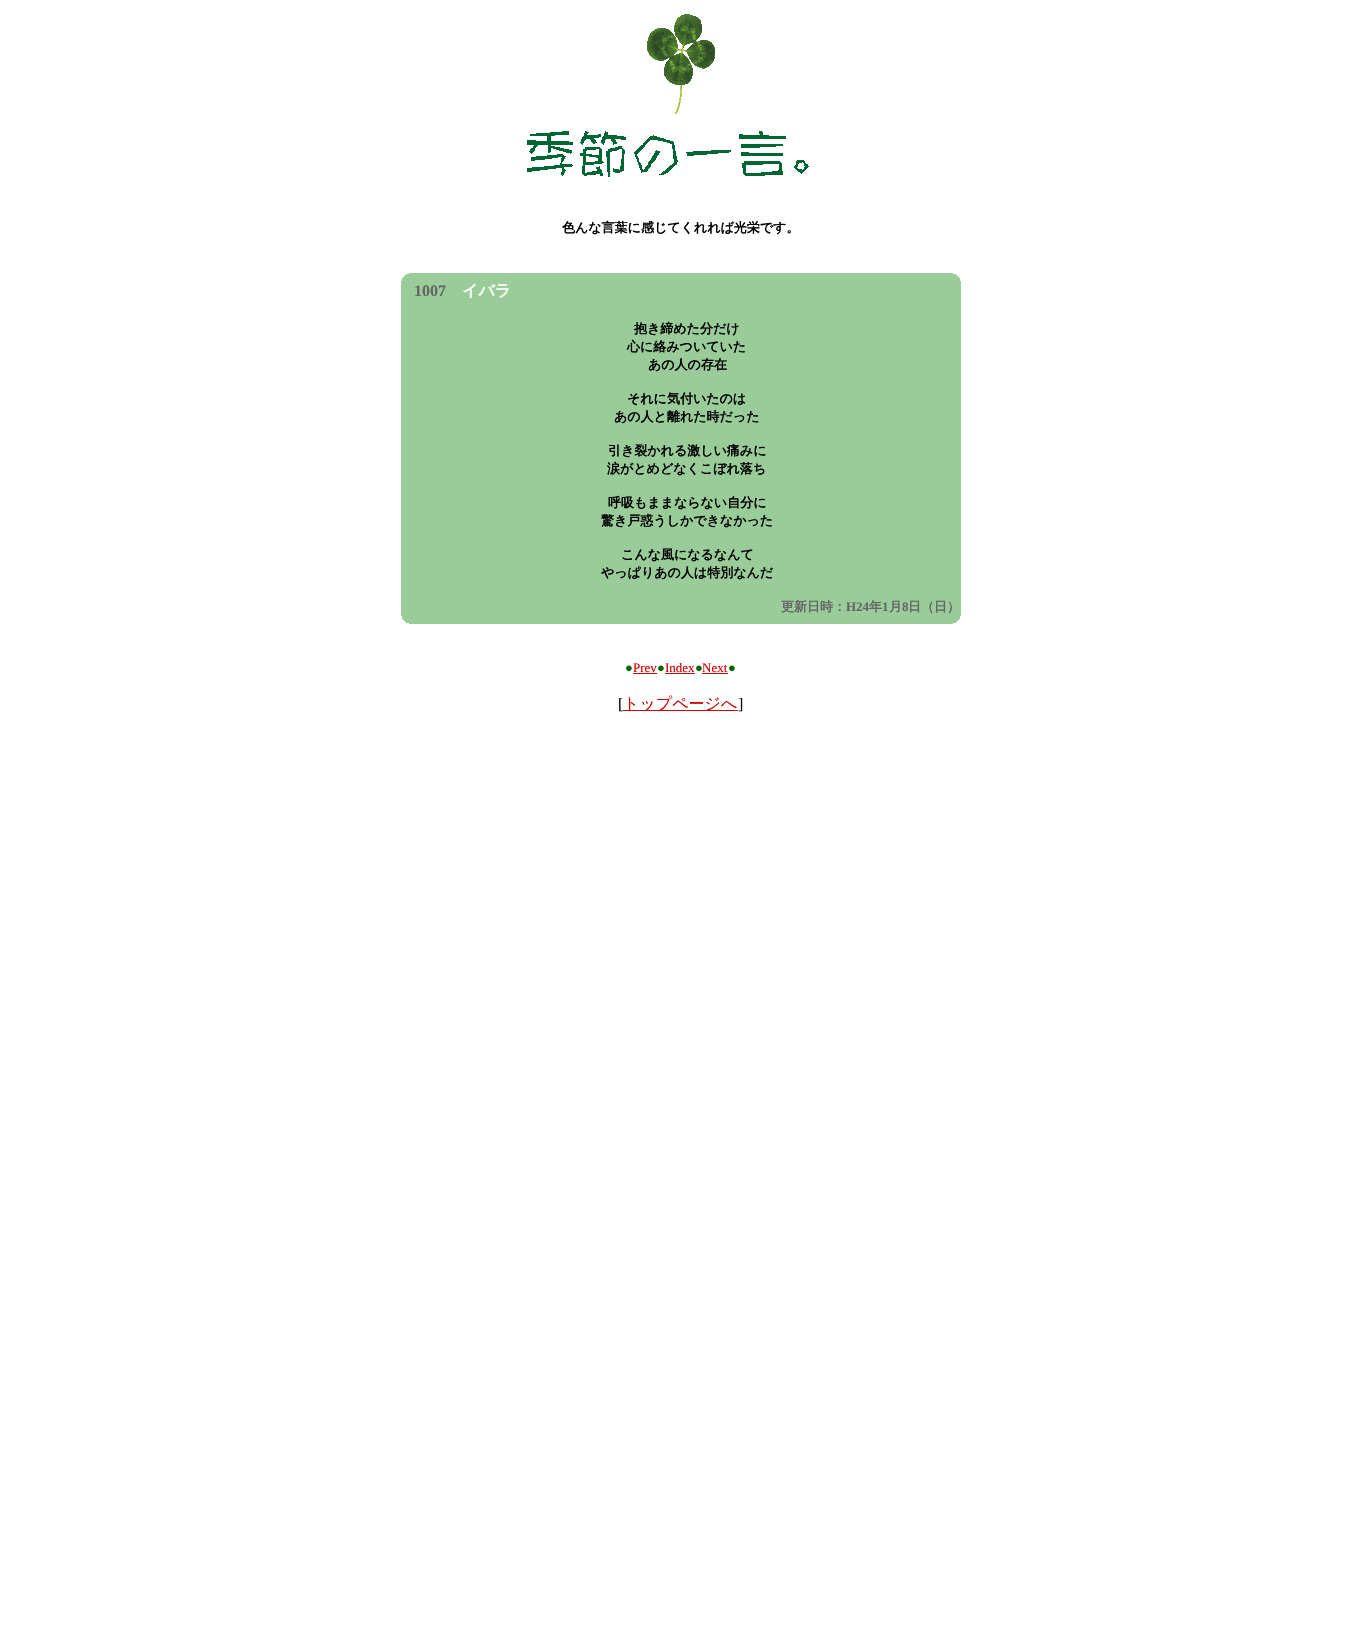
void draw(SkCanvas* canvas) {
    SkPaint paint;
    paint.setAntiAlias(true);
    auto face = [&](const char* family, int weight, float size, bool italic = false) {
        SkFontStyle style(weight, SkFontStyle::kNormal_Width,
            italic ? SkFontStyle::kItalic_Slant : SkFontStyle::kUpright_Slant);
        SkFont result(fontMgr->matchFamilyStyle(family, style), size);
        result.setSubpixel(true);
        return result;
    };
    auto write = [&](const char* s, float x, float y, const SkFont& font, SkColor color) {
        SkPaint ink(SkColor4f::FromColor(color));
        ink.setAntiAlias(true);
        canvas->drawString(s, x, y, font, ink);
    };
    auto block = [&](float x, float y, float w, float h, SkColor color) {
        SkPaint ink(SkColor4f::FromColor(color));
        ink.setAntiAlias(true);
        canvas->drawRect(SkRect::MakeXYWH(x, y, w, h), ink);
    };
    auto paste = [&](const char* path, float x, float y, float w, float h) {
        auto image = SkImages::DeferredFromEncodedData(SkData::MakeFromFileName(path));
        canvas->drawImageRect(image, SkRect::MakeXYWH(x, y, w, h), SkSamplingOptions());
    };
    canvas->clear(SK_ColorWHITE);
    paste("pic1.png", 647, 14, 68, 100);
    paste("pic2.png", 527, 131, 282, 46);
    auto kFont1 = face("WenQuanYi Zen Hei", 700, 13);
    write("色んな言葉に感じてくれれば光栄です。", 562, 232, kFont1, SK_ColorBLACK);
    block(401, 273, 560, 8, SkColorSetRGB(153, 204, 153));
    paste("pic3.png", 401, 273, 8, 8);
    paste("pic4.png", 953, 273, 8, 8);
    block(401, 281, 13, 343, SkColorSetRGB(153, 204, 153));
    block(414, 281, 547, 335, SkColorSetRGB(153, 204, 153));
    auto kFont2 = face("Liberation Serif", 700, 16);
    write("1007", 414, 296, kFont2, SkColorSetRGB(102, 102, 102));
    auto kFont3 = face("WenQuanYi Zen Hei", 700, 16);
    write("イバラ", 462, 296, kFont3, SK_ColorWHITE);
    write("抱き締めた分だけ", 634, 333, kFont1, SK_ColorBLACK);
    write("心に絡みついていた", 627, 351, kFont1, SK_ColorBLACK);
    write("あの人の存在", 648, 369, kFont1, SK_ColorBLACK);
    write("それに気付いたのは", 627, 403, kFont1, SK_ColorBLACK);
    write("あの人と離れた時だった", 614, 421, kFont1, SK_ColorBLACK);
    write("引き裂かれる激しい痛みに", 608, 455, kFont1, SK_ColorBLACK);
    write("涙がとめどなくこぼれ落ち", 607, 473, kFont1, SK_ColorBLACK);
    write("呼吸もままならない自分に", 608, 507, kFont1, SK_ColorBLACK);
    write("驚き戸惑うしかできなかった", 601, 525, kFont1, SK_ColorBLACK);
    write("こんな風になるなんて", 621, 559, kFont1, SK_ColorBLACK);
    write("やっぱりあの人は特別なんだ", 601, 577, kFont1, SK_ColorBLACK);
    write("更新日時：", 781, 611, kFont1, SkColorSetRGB(102, 102, 102));
    auto kFont4 = face("Liberation Serif", 700, 13);
    write("H24", 846, 611, kFont4, SkColorSetRGB(102, 102, 102));
    write("年", 869, 611, kFont1, SkColorSetRGB(102, 102, 102));
    write("1", 882, 611, kFont4, SkColorSetRGB(102, 102, 102));
    write("月", 889, 611, kFont1, SkColorSetRGB(102, 102, 102));
    write("8", 902, 611, kFont4, SkColorSetRGB(102, 102, 102));
    write("日（日）", 908, 611, kFont1, SkColorSetRGB(102, 102, 102));
    paste("pic5.png", 401, 616, 8, 8);
    block(414, 616, 547, 8, SkColorSetRGB(153, 204, 153));
    paste("pic6.png", 953, 616, 8, 8);
    auto kFont5 = face("Liberation Serif", 400, 13);
    write("●", 625, 672, kFont5, SkColorSetRGB(0, 102, 0));
    block(633, 673, 24, 1, SkColorSetRGB(204, 0, 0));
    write("Prev", 633, 672, kFont5, SkColorSetRGB(204, 0, 0));
    write("●", 657, 672, kFont5, SkColorSetRGB(0, 102, 0));
    block(665, 673, 30, 1, SkColorSetRGB(204, 0, 0));
    write("Index", 665, 672, kFont5, SkColorSetRGB(204, 0, 0));
    write("●", 695, 672, kFont5, SkColorSetRGB(0, 102, 0));
    block(702, 673, 26, 1, SkColorSetRGB(204, 0, 0));
    write("Next", 702, 672, kFont5, SkColorSetRGB(204, 0, 0));
    write("●", 728, 672, kFont5, SkColorSetRGB(0, 102, 0));
    auto kFont6 = face("Liberation Serif", 400, 16);
    write("[", 618, 709, kFont6, SK_ColorBLACK);
    block(623, 710, 115, 1, SkColorSetRGB(204, 0, 0));
    auto kFont7 = face("WenQuanYi Zen Hei", 500, 16);
    write("トップページへ", 623, 709, kFont7, SkColorSetRGB(204, 0, 0));
    write("]", 738, 709, kFont6, SK_ColorBLACK);
}
